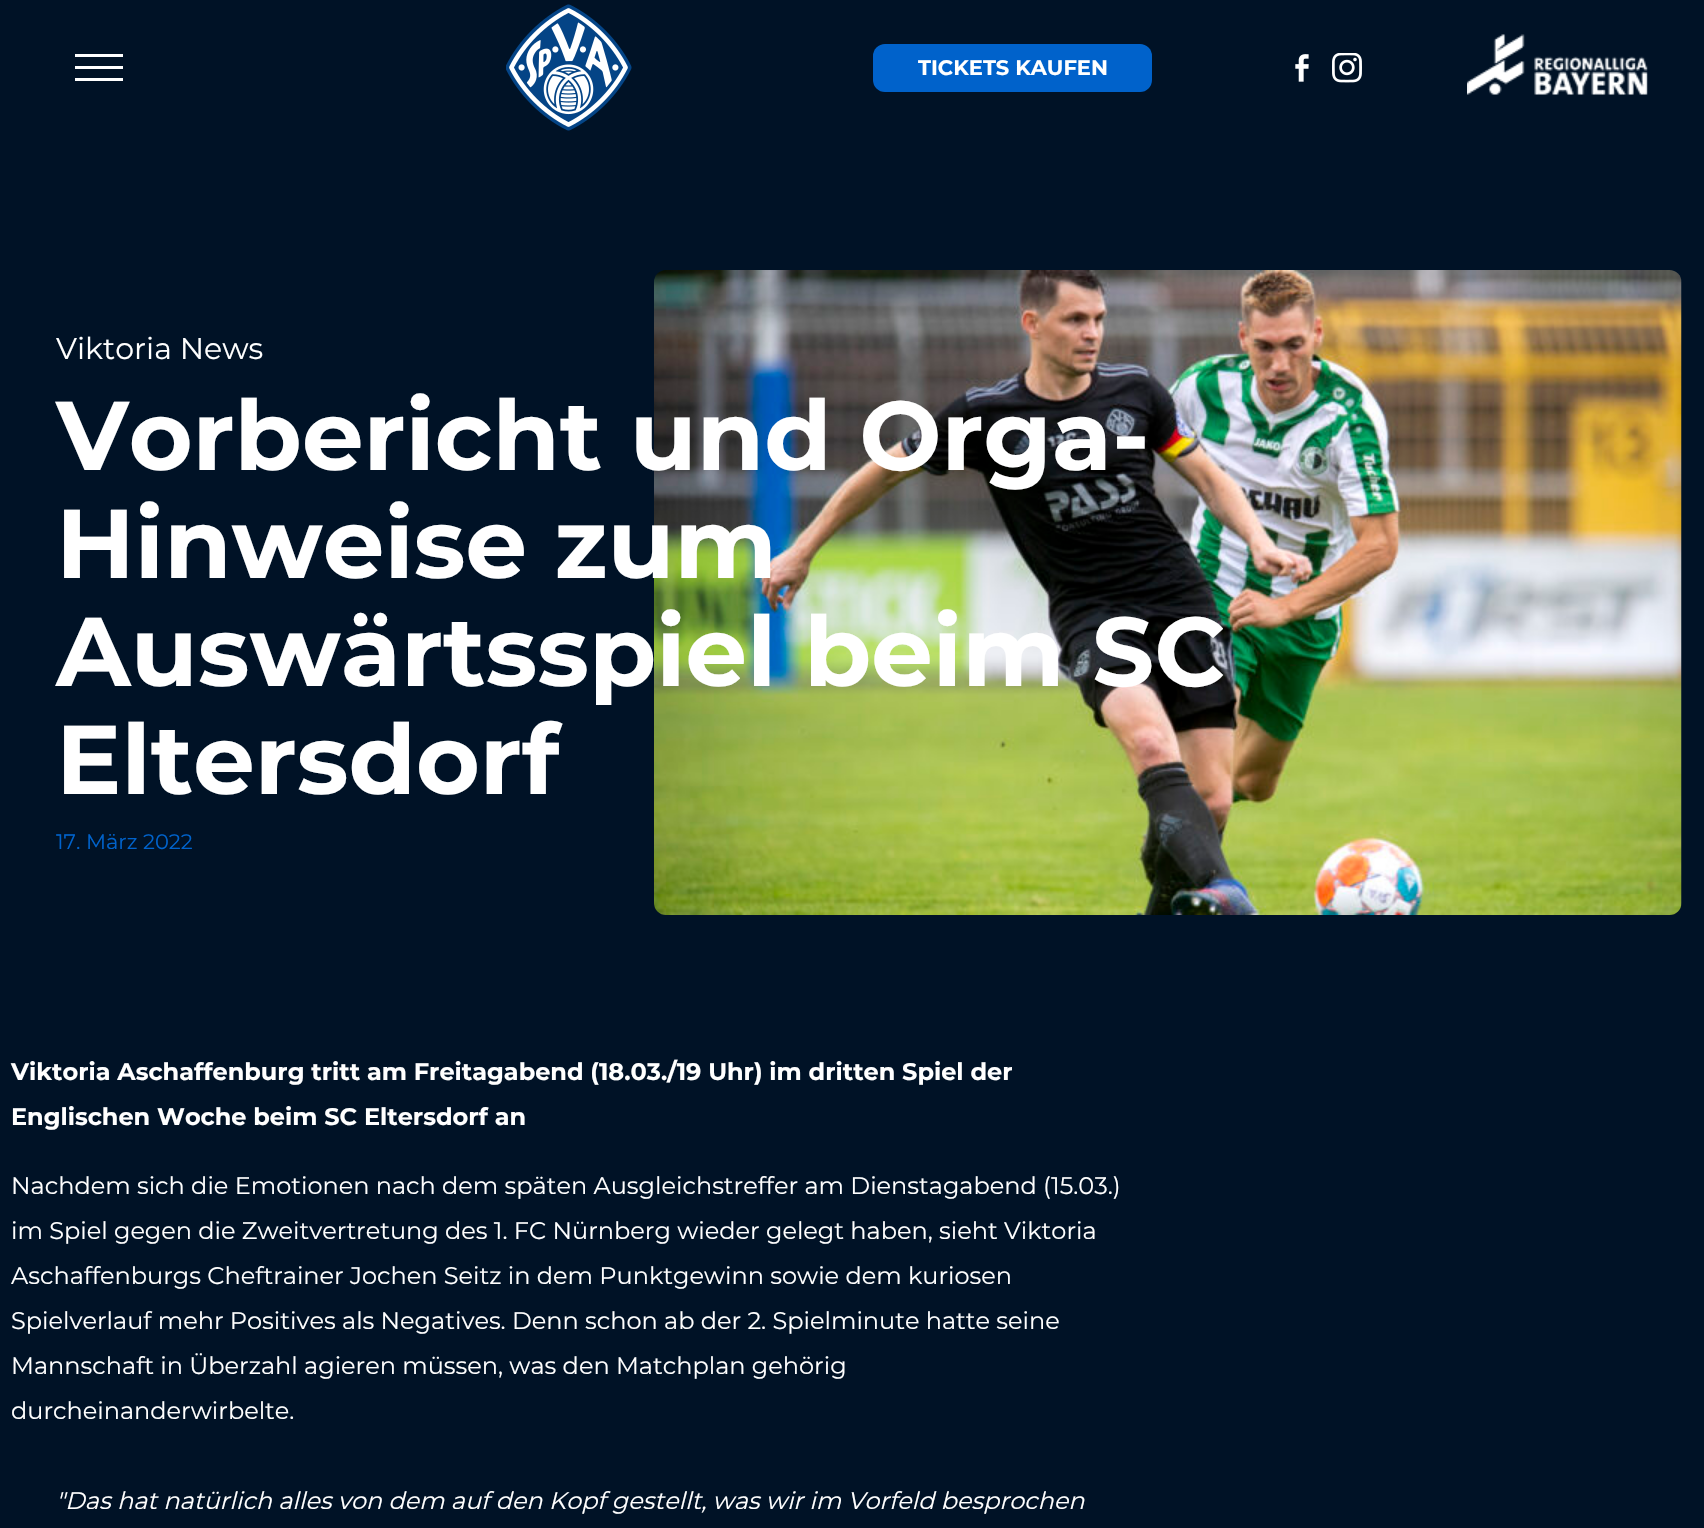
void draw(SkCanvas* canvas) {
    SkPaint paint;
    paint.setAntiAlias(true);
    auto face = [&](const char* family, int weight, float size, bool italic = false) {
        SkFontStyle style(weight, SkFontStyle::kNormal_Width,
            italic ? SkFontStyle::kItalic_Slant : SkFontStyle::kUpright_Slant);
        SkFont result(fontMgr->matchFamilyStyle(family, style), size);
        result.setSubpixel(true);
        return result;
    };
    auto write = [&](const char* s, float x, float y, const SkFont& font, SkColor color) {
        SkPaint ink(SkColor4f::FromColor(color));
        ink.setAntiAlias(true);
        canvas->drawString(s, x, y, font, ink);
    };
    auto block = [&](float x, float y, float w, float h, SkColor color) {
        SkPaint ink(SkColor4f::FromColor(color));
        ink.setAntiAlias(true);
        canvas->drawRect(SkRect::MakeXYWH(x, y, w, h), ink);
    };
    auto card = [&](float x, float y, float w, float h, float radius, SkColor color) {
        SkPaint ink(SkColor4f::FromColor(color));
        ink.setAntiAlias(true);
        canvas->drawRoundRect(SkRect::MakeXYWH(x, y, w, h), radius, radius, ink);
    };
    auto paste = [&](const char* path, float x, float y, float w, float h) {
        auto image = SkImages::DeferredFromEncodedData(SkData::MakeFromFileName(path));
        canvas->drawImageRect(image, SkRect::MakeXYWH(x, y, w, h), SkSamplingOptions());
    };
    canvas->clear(SkColorSetRGB(0, 18, 38));
    block(75, 66, 48, 3, SK_ColorWHITE);
    block(75, 54, 48, 3, SK_ColorWHITE);
    block(75, 78, 48, 3, SK_ColorWHITE);
    paste("pic1.png", 506, 4, 126, 127);
    card(873, 44, 279, 48, 12, SkColorSetRGB(0, 98, 203));
    auto kFont1 = face("Montserrat", 100, 21);
    write("TICKETS KAUFEN", 918, 75, kFont1, SK_ColorWHITE);
    paste("pic2.png", 1295, 54, 14, 28);
    paste("pic3.png", 1332, 53, 30, 30);
    paste("pic4.png", 1467, 34, 181, 61);
    paste("pic5.png", 654, 270, 1028, 645);
    auto kFont2 = face("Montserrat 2", 100, 30);
    write("Viktoria News", 56, 359, kFont2, SK_ColorWHITE);
    auto kFont3 = face("Montserrat", 100, 97.5f);
    write("Vorbericht und Orga-", 56, 470, kFont3, SK_ColorWHITE);
    write("Hinweise zum", 56, 578, kFont3, SK_ColorWHITE);
    write("Auswärtsspiel beim SC", 56, 686, kFont3, SK_ColorWHITE);
    write("Eltersdorf", 56, 794, kFont3, SK_ColorWHITE);
    auto kFont4 = face("Montserrat 2", 100, 21);
    write("17. März 2022", 56, 849, kFont4, SkColorSetRGB(0, 98, 203));
    auto kFont5 = face("Montserrat", 100, 24);
    write("Viktoria Aschaffenburg tritt am Freitagabend (18.03./19 Uhr) im dritten Spiel der", 11, 1080, kFont5, SK_ColorWHITE);
    write("Englischen Woche beim SC Eltersdorf an", 11, 1125, kFont5, SK_ColorWHITE);
    auto kFont6 = face("Montserrat 2", 100, 24);
    write("Nachdem sich die Emotionen nach dem späten Ausgleichstreffer am Dienstagabend (15.03.)", 11, 1194, kFont6, SK_ColorWHITE);
    write("im Spiel gegen die Zweitvertretung des 1. FC Nürnberg wieder gelegt haben, sieht Viktoria", 11, 1239, kFont6, SK_ColorWHITE);
    write("Aschaffenburgs Cheftrainer Jochen Seitz in dem Punktgewinn sowie dem kuriosen", 11, 1284, kFont6, SK_ColorWHITE);
    write("Spielverlauf mehr Positives als Negatives. Denn schon ab der 2. Spielminute hatte seine", 11, 1329, kFont6, SK_ColorWHITE);
    write("Mannschaft in Überzahl agieren müssen, was den Matchplan gehörig", 11, 1374, kFont6, SK_ColorWHITE);
    write("durcheinanderwirbelte.", 11, 1419, kFont6, SK_ColorWHITE);
    auto kFont7 = face("Montserrat", 100, 24, true);
    write("\"Das hat natürlich alles von dem auf den Kopf gestellt, was wir im Vorfeld besprochen", 56, 1509, kFont7, SK_ColorWHITE);
}
